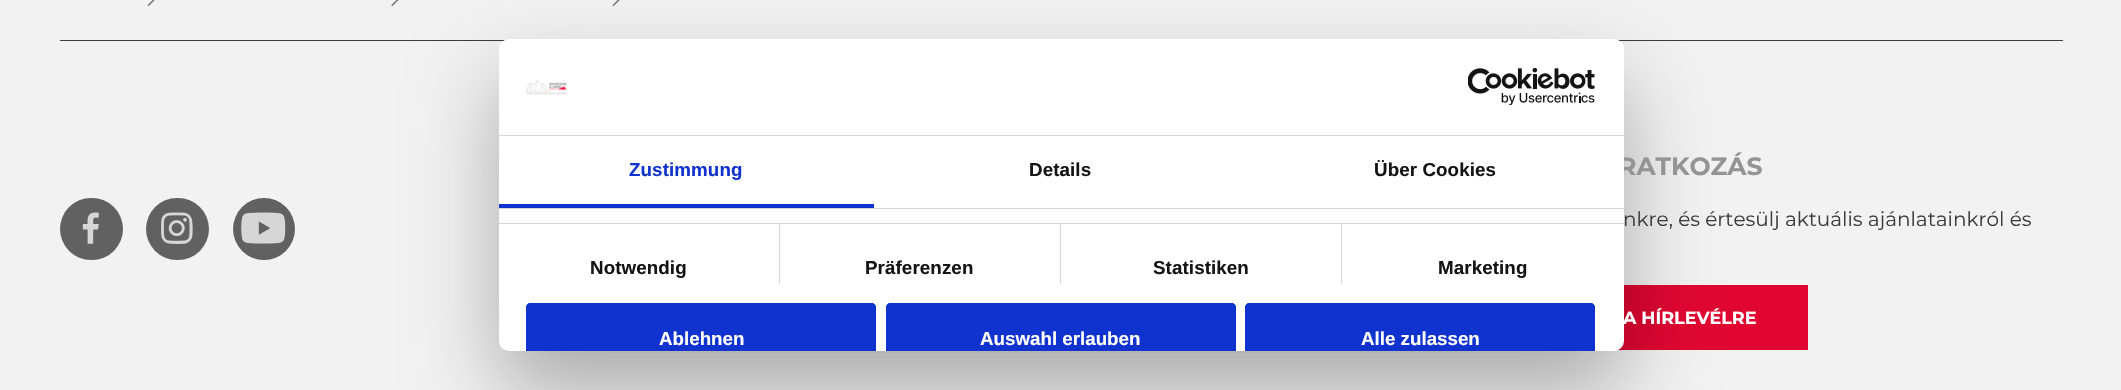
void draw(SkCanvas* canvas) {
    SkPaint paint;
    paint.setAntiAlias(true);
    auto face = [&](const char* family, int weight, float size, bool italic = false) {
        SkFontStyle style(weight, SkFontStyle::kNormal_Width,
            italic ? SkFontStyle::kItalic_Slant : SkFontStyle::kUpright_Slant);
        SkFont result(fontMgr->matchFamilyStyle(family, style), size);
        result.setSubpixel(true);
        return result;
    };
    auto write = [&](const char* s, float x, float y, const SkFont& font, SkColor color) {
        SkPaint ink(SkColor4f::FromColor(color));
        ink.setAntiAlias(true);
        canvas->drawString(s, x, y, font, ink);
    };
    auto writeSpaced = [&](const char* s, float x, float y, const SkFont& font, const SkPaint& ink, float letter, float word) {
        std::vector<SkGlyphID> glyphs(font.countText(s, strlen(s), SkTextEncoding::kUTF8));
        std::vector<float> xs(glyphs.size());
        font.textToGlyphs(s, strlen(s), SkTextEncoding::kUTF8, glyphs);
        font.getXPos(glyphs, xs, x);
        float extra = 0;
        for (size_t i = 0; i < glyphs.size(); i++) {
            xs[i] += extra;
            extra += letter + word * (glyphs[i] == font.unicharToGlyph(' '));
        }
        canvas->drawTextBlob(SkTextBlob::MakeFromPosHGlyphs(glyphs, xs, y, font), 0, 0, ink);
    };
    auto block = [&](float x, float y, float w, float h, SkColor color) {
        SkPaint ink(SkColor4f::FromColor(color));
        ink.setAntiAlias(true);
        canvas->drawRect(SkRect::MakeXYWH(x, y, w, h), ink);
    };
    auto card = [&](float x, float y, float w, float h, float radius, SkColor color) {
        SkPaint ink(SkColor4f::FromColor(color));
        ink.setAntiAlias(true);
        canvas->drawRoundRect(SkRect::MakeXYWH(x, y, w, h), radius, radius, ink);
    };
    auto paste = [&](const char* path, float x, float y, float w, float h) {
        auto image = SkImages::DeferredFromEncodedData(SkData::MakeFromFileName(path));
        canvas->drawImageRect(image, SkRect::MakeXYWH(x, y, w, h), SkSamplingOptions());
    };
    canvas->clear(SkColorSetRGB(242, 242, 242));
    block(60, 40, 2003, 1, SkColorSetRGB(61, 61, 61));
    paste("pic4.png", 391, 0, 8, 7);
    paste("pic3.png", 612, 0, 8, 7);
    block(1618, 285, 190, 65, SkColorSetRGB(225, 6, 50));
    paint.setColor(SkColorSetARGB(77, 0, 0, 0));
    paint.setMaskFilter(SkMaskFilter::MakeBlur(kNormal_SkBlurStyle, 42.5f));
    canvas->drawRoundRect(SkRect::MakeXYWH(499, 79, 1125, 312), 10, 10, paint);
    paint.setMaskFilter(nullptr);
    auto kFont1 = face("Montserrat", 700, 25);
    write("RATKOZÁS", 1618, 175, kFont1, SkColorSetRGB(148, 148, 148));
    card(499, 39, 1125, 312, 10, SK_ColorWHITE);
    block(499, 135, 1125, 1, SkColorSetRGB(214, 214, 214));
    paste("pic1.png", 526, 80, 41, 15);
    paste("pic2.png", 1468, 68, 127, 37);
    block(499, 208, 1125, 1, SkColorSetRGB(214, 214, 214));
    block(499, 204, 375, 4, SkColorSetRGB(16, 50, 207));
    auto kFont2 = face("Liberation Sans", 700, 18.75f);
    paint.setColor(SkColorSetRGB(16, 50, 207));
    writeSpaced("Zustimmung", 629, 176, kFont2, paint, 0.1f, 0);
    paint.setColor(SkColorSetRGB(20, 20, 20));
    writeSpaced("Details", 1029, 176, kFont2, paint, 0.1f, 0);
    writeSpaced("Über Cookies", 1374, 176, kFont2, paint, 0.1f, 0);
    block(499, 223, 1125, 1, SkColorSetRGB(214, 214, 214));
    block(779, 224, 1, 60, SkColorSetRGB(214, 214, 214));
    writeSpaced("Notwendig", 590, 274, kFont2, paint, 0.1f, 0);
    block(1060, 224, 1, 60, SkColorSetRGB(214, 214, 214));
    writeSpaced("Präferenzen", 865, 274, kFont2, paint, 0.1f, 0);
    block(1341, 224, 1, 60, SkColorSetRGB(214, 214, 214));
    writeSpaced("Statistiken", 1153, 274, kFont2, paint, 0.1f, 0);
    writeSpaced("Marketing", 1438, 274, kFont2, paint, 0.1f, 0);
    paint.setColor(SkColorSetRGB(16, 50, 207));
    canvas->drawPath(SkPathBuilder().moveTo(531, 303).lineTo(871, 303).cubicTo(874, 303, 876, 305, 876, 308).lineTo(876, 351).lineTo(526, 351).lineTo(526, 308).cubicTo(526, 305, 528, 303, 531, 303).close().detach(), paint);
    canvas->drawPath(SkPathBuilder().moveTo(531, 303).cubicTo(528, 303, 526, 305, 526, 308).lineTo(526, 351).lineTo(529, 351).lineTo(529, 308).cubicTo(529, 307, 530, 306, 531, 306).lineTo(871, 306).cubicTo(872, 306, 873, 307, 873, 308).lineTo(873, 351).lineTo(876, 351).lineTo(876, 308).cubicTo(876, 305, 874, 303, 871, 303).close().detach(), paint);
    write("Ablehnen", 659, 345, kFont2, SK_ColorWHITE);
    canvas->drawPath(SkPathBuilder().moveTo(891, 303).lineTo(1231, 303).cubicTo(1234, 303, 1236, 305, 1236, 308).lineTo(1236, 351).lineTo(886, 351).lineTo(886, 308).cubicTo(886, 305, 888, 303, 891, 303).close().detach(), paint);
    canvas->drawPath(SkPathBuilder().moveTo(891, 303).cubicTo(888, 303, 886, 305, 886, 308).lineTo(886, 351).lineTo(889, 351).lineTo(889, 308).cubicTo(889, 307, 890, 306, 891, 306).lineTo(1231, 306).cubicTo(1232, 306, 1233, 307, 1233, 308).lineTo(1233, 351).lineTo(1236, 351).lineTo(1236, 308).cubicTo(1236, 305, 1234, 303, 1231, 303).close().detach(), paint);
    write("Auswahl erlauben", 980, 345, kFont2, SK_ColorWHITE);
    canvas->drawPath(SkPathBuilder().moveTo(1250, 303).lineTo(1590, 303).cubicTo(1593, 303, 1595, 305, 1595, 308).lineTo(1595, 351).lineTo(1245, 351).lineTo(1245, 308).cubicTo(1245, 305, 1247, 303, 1250, 303).close().detach(), paint);
    canvas->drawPath(SkPathBuilder().moveTo(1250, 303).cubicTo(1247, 303, 1245, 305, 1245, 308).lineTo(1245, 351).lineTo(1248, 351).lineTo(1248, 308).cubicTo(1248, 307, 1249, 306, 1250, 306).lineTo(1590, 306).cubicTo(1591, 306, 1592, 307, 1592, 308).lineTo(1592, 351).lineTo(1595, 351).lineTo(1595, 308).cubicTo(1595, 305, 1593, 303, 1590, 303).close().detach(), paint);
    write("Alle zulassen", 1361, 345, kFont2, SK_ColorWHITE);
    block(1615, 350, 1, 1, SK_ColorWHITE);
    paste("pic3.png", 147, 0, 8, 7);
    card(60, 198, 63, 62, 31, SkColorSetRGB(97, 97, 97));
    paste("pic5.png", 82, 212, 17, 32);
    card(146, 198, 63, 62, 31, SkColorSetRGB(97, 97, 97));
    paste("pic6.png", 161, 212, 32, 32);
    paint.setColor(SkColorSetRGB(97, 97, 97));
    canvas->drawCircle(264, 229, 31, paint);
    paste("pic7.png", 241, 212, 45, 32);
    auto kFont3 = face("Montserrat", 400, 20);
    write("nkre, és értesülj aktuális ajánlatainkról és", 1623, 226, kFont3, SkColorSetRGB(61, 61, 61));
    auto kFont4 = face("Montserrat", 700, 17.5f);
    write("A HÍRLEVÉLRE", 1623, 324, kFont4, SK_ColorWHITE);
}
